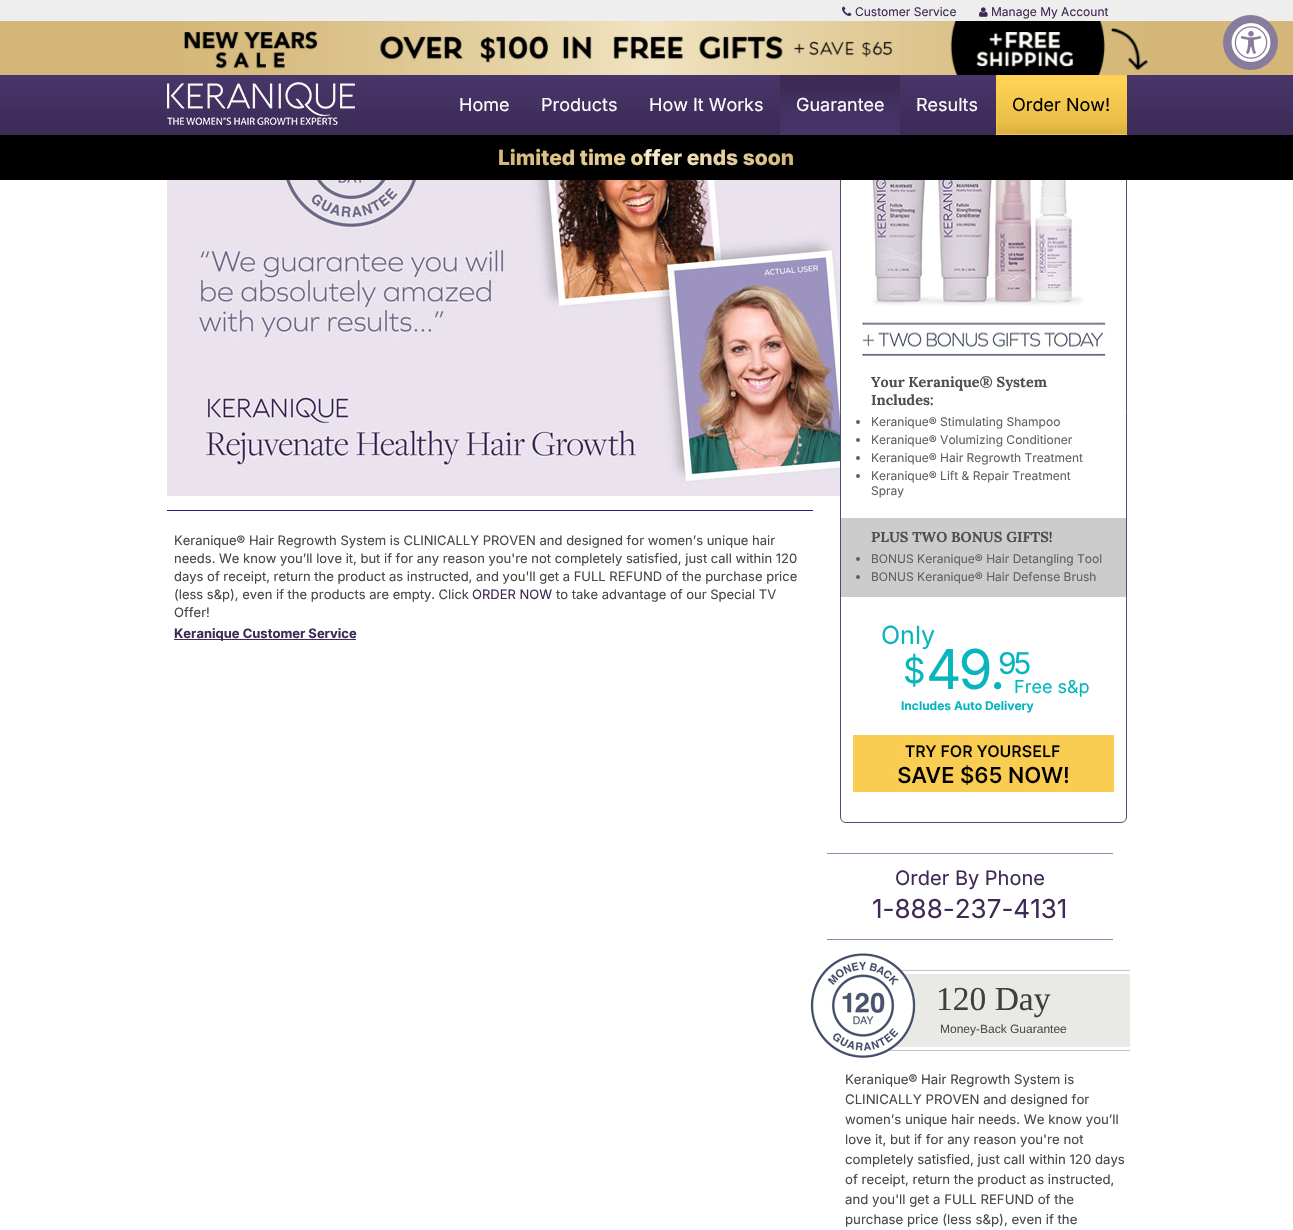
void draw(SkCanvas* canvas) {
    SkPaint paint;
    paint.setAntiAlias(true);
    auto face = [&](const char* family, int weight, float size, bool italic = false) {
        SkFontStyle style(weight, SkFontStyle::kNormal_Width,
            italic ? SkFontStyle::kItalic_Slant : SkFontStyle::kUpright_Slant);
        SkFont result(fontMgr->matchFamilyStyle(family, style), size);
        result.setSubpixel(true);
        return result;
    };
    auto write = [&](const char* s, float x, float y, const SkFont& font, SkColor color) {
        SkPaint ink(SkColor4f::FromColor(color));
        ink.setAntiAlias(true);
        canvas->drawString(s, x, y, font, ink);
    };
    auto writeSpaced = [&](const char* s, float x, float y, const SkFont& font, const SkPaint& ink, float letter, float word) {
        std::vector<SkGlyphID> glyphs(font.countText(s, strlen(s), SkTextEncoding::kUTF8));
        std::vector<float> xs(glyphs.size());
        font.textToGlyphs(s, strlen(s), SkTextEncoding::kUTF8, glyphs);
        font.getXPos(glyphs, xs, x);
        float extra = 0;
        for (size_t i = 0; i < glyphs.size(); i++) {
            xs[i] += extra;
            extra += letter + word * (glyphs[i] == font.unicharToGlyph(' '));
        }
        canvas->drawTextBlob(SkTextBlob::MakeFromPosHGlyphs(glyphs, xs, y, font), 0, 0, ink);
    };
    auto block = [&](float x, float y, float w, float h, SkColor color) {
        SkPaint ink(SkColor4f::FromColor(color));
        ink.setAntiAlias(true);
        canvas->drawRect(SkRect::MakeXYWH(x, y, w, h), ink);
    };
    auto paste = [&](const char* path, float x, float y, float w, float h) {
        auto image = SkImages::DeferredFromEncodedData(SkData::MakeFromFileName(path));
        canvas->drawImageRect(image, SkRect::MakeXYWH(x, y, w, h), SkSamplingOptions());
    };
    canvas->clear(SK_ColorWHITE);
    paint.setStyle(SkPaint::kStroke_Style);
    paint.setStrokeWidth(1);
    paint.setColor(SkColorSetRGB(82, 75, 112));
    canvas->drawRoundRect(SkRect::MakeXYWH(840.5f, 2.5f, 286, 820), 5.5f, 5.5f, paint);
    block(0, 0, 1293, 21, SkColorSetRGB(238, 238, 238));
    paste("pic1.png", 842, 6, 10, 10);
    auto kFont1 = face("Inter", 400, 12);
    write("Customer Service", 855, 16, kFont1, SkColorSetRGB(63, 42, 86));
    paste("pic2.png", 979, 7, 9, 10);
    write("Manage My Account", 991, 16, kFont1, SkColorSetRGB(63, 42, 86));
    block(0, 21, 1293, 54, SkColorSetRGB(212, 183, 120));
    paste("pic3.png", 184, 21, 964, 54);
    paste("pic4.png", 0, 75, 1293, 60);
    paste("pic5.png", 167, 82, 188, 43);
    auto kFont2 = face("Inter", 400, 18);
    write("Home", 459, 111, kFont2, SK_ColorWHITE);
    write("Products", 541, 111, kFont2, SK_ColorWHITE);
    write("How It Works", 649, 111, kFont2, SK_ColorWHITE);
    block(780, 75, 120, 15, SkColorSetRGB(63, 42, 86));
    paste("pic6.png", 780, 90, 120, 45);
    write("Guarantee", 796, 111, kFont2, SK_ColorWHITE);
    write("Results", 916, 111, kFont2, SK_ColorWHITE);
    block(996, 75, 131, 60, SkColorSetRGB(249, 204, 80));
    paste("pic7.png", 996, 75, 131, 60);
    write("Order Now!", 1012, 111, kFont2, SK_ColorBLACK);
    block(0, 135, 1293, 45, SK_ColorBLACK);
    auto kFont3 = face("Inter", 800, 21);
    paint.setStyle(SkPaint::kFill_Style);
    {
        const SkColor colors[] = {SkColorSetRGB(212, 183, 120), SkColorSetRGB(236, 214, 156), SkColorSetRGB(248, 237, 210), SkColorSetRGB(212, 183, 120)};
        const float stops[] = {0, 0.5f, 0.5f, 1};
        const SkPoint ends[] = {{498, 158}, {795, 158}};
        paint.setShader(SkGradientShader::MakeLinear(ends, colors, stops, 4, SkTileMode::kClamp));
        paint.setAlpha(255);
    }
    canvas->drawString("Limited time offer ends soon", 498, 165, kFont3, paint);
    block(167, 510, 646, 1, SkColorSetRGB(54, 22, 122));
    paste("pic8.png", 167, 180, 673, 316);
    auto kFont4 = face("Inter", 400, 13);
    write("Keranique® Hair Regrowth System is CLINICALLY PROVEN and designed for women’s unique hair", 174, 545, kFont4, SkColorSetRGB(70, 71, 72));
    write("needs. We know you’ll love it, but if for any reason you're not completely satisfied, just call within 120", 174, 563, kFont4, SkColorSetRGB(70, 71, 72));
    write("days of receipt, return the product as instructed, and you'll get a FULL REFUND of the purchase price", 174, 581, kFont4, SkColorSetRGB(70, 71, 72));
    write("(less s&p), even if the products are empty. Click", 174, 599, kFont4, SkColorSetRGB(70, 71, 72));
    write("ORDER NOW", 472, 599, kFont4, SkColorSetRGB(63, 42, 86));
    write("to take advantage of our Special TV", 556, 599, kFont4, SkColorSetRGB(70, 71, 72));
    write("Offer!", 174, 617, kFont4, SkColorSetRGB(70, 71, 72));
    block(174, 639, 182, 1, SkColorSetRGB(63, 42, 86));
    auto kFont5 = face("Inter", 700, 13);
    write("Keranique Customer Service", 174, 638, kFont5, SkColorSetRGB(63, 42, 86));
    paste("pic9.png", 862, 180, 247, 179);
    auto kFont6 = face("Lora", 700, 14.4f);
    write("Your Keranique® System", 871, 387, kFont6, SkColorSetRGB(79, 79, 79));
    write("Includes:", 871, 405, kFont6, SkColorSetRGB(79, 79, 79));
    paint.setShader(nullptr);
    paint.setColor(SkColorSetRGB(95, 96, 98));
    canvas->drawCircle(858, 422, 2, paint);
    write("Keranique® Stimulating Shampoo", 871, 426, kFont1, SkColorSetRGB(95, 96, 98));
    canvas->drawCircle(858, 440, 2, paint);
    write("Keranique® Volumizing Conditioner", 871, 444, kFont1, SkColorSetRGB(95, 96, 98));
    canvas->drawCircle(858, 458, 2, paint);
    write("Keranique® Hair Regrowth Treatment", 871, 462, kFont1, SkColorSetRGB(95, 96, 98));
    canvas->drawCircle(858, 476, 2, paint);
    write("Keranique® Lift & Repair Treatment", 871, 480, kFont1, SkColorSetRGB(95, 96, 98));
    write("Spray", 871, 495, kFont1, SkColorSetRGB(95, 96, 98));
    block(841, 518, 285, 79, SkColorSetRGB(204, 204, 204));
    write("PLUS TWO BONUS GIFTS!", 871, 542, kFont6, SkColorSetRGB(79, 79, 79));
    canvas->drawCircle(858, 559, 2, paint);
    write("BONUS Keranique® Hair Detangling Tool", 871, 563, kFont1, SkColorSetRGB(95, 96, 98));
    canvas->drawCircle(858, 577, 2, paint);
    write("BONUS Keranique® Hair Defense Brush", 871, 581, kFont1, SkColorSetRGB(95, 96, 98));
    auto kFont7 = face("Inter", 400, 25);
    write("Only", 881, 644, kFont7, SkColorSetRGB(7, 182, 188));
    auto kFont8 = face("Inter", 400, 35);
    paint.setColor(SkColorSetRGB(7, 182, 188));
    writeSpaced("$", 903, 683, kFont8, paint, -3, 0);
    auto kFont9 = face("Inter", 400, 55);
    writeSpaced("49.", 926, 689, kFont9, paint, -3, 0);
    auto kFont10 = face("Inter", 400, 30);
    writeSpaced("95", 998, 674, kFont10, paint, -3, 0);
    write("Free s&p", 1014, 693, kFont2, SkColorSetRGB(7, 182, 188));
    auto kFont11 = face("Inter", 700, 12);
    write("Includes Auto Delivery", 901, 710, kFont11, SkColorSetRGB(7, 182, 188));
    paste("pic10.png", 853, 735, 261, 57);
    block(827, 853, 286, 1, SkColorSetRGB(151, 130, 174));
    block(827, 939, 286, 1, SkColorSetRGB(151, 130, 174));
    auto kFont12 = face("Inter", 400, 20);
    write("Order By Phone", 895, 885, kFont12, SkColorSetRGB(63, 42, 86));
    auto kFont13 = face("Inter", 400, 26);
    write("1-888-237-4131", 872, 918, kFont13, SkColorSetRGB(63, 42, 86));
    block(898, 970, 232, 1, SkColorSetRGB(194, 194, 194));
    block(884, 1050, 246, 1, SkColorSetRGB(194, 194, 194));
    block(891, 974, 239, 73, SkColorSetRGB(233, 233, 230));
    paste("pic11.png", 810, 953, 106, 105);
    auto kFont14 = face("Liberation Serif", 400, 33.5f);
    write("120 Day", 936, 1010, kFont14, SkColorSetRGB(63, 63, 63));
    auto kFont15 = face("Liberation Sans", 400, 12);
    write("Money-Back Guarantee", 940, 1033, kFont15, SkColorSetRGB(79, 79, 79));
    auto kFont16 = face("Inter", 400, 13.2f);
    write("Keranique® Hair Regrowth System is", 845, 1084, kFont16, SkColorSetRGB(70, 71, 72));
    write("CLINICALLY PROVEN and designed for", 845, 1104, kFont16, SkColorSetRGB(70, 71, 72));
    write("women’s unique hair needs. We know you’ll", 845, 1124, kFont16, SkColorSetRGB(70, 71, 72));
    write("love it, but if for any reason you're not", 845, 1144, kFont16, SkColorSetRGB(70, 71, 72));
    write("completely satisfied, just call within 120 days", 845, 1164, kFont16, SkColorSetRGB(70, 71, 72));
    write("of receipt, return the product as instructed,", 845, 1184, kFont16, SkColorSetRGB(70, 71, 72));
    write("and you'll get a FULL REFUND of the", 845, 1204, kFont16, SkColorSetRGB(70, 71, 72));
    write("purchase price (less s&p), even if the", 845, 1224, kFont16, SkColorSetRGB(70, 71, 72));
    paint.setColor(SkColorSetRGB(136, 124, 156));
    canvas->drawCircle(1250.5f, 42.5f, 27.5f, paint);
    paste("pic12.png", 1231, 23, 40, 39);
}
